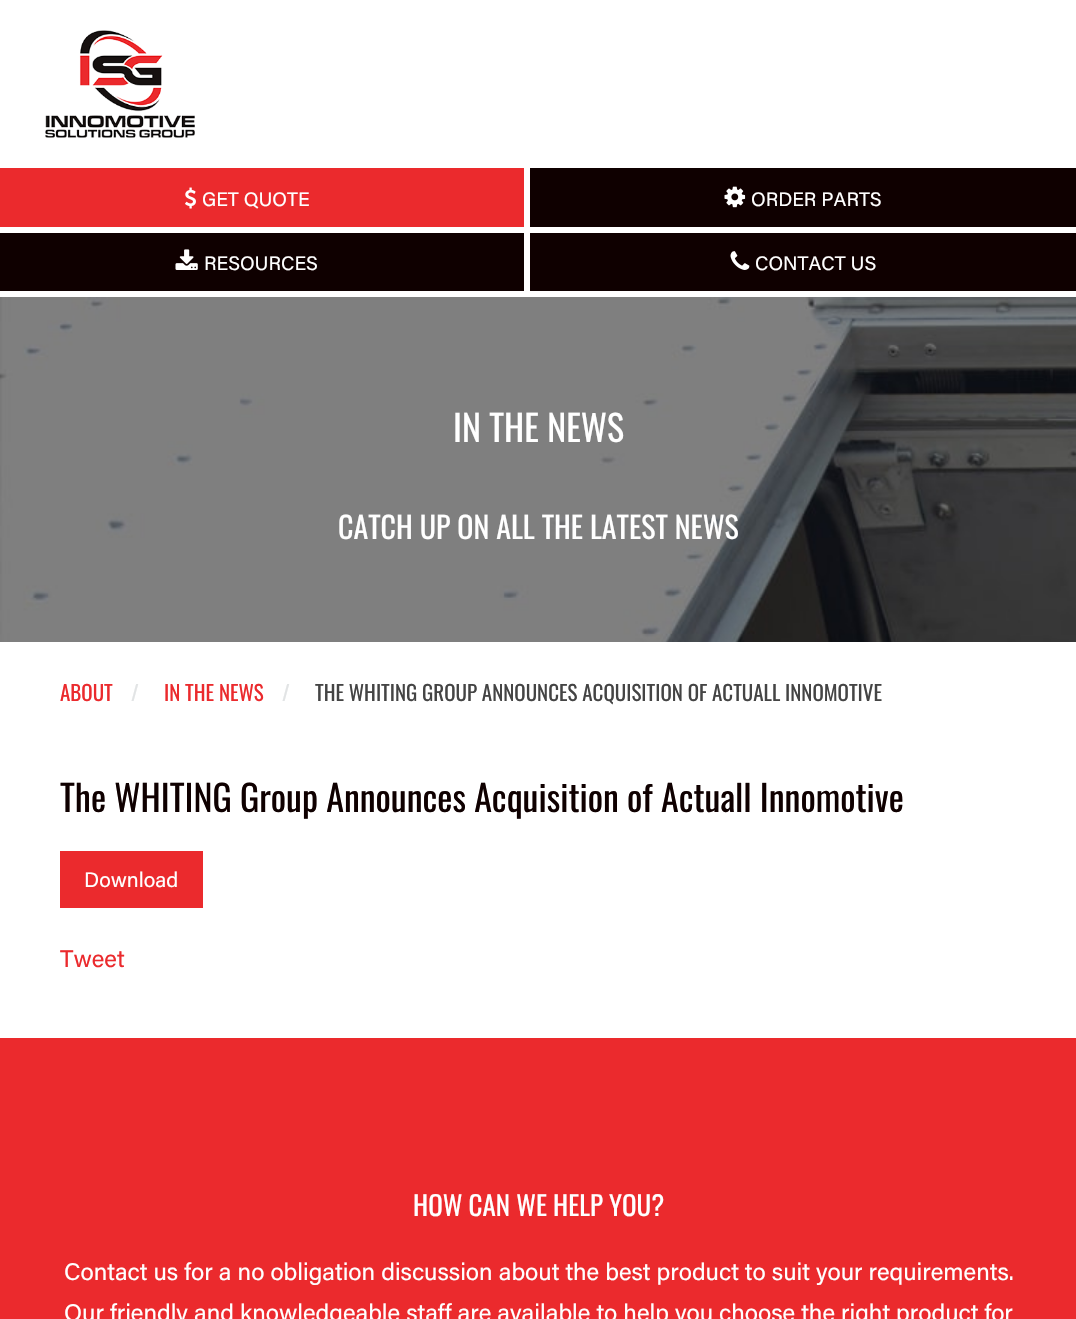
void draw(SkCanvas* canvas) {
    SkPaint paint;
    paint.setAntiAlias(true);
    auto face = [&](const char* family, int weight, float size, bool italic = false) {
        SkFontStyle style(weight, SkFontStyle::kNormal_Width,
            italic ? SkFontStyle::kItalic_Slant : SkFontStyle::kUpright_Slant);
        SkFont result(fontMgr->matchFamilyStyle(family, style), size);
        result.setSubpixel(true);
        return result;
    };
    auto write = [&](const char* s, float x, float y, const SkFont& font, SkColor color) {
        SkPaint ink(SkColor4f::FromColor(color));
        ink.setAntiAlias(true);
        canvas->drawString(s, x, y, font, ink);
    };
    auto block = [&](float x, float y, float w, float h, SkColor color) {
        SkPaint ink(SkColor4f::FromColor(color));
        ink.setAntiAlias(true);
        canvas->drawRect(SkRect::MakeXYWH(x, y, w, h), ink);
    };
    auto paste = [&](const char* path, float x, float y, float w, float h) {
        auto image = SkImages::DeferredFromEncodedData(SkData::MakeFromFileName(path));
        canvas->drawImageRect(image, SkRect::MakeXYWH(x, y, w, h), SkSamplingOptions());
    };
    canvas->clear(SK_ColorWHITE);
    paste("pic1.png", 45, 30, 150, 108);
    block(0, 168, 524, 59, SkColorSetRGB(235, 42, 45));
    paste("pic2.png", 185, 187, 11, 22);
    auto kFont1 = face("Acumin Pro", 400, 19.5f);
    write("GET QUOTE", 202, 206, kFont1, SK_ColorWHITE);
    block(0, 233, 524, 58, SkColorSetRGB(15, 0, 0));
    paste("pic3.png", 175, 249, 23, 21);
    write("RESOURCES", 204, 270, kFont1, SK_ColorWHITE);
    block(530, 168, 546, 59, SkColorSetRGB(15, 0, 0));
    paste("pic4.png", 724, 186, 22, 22);
    write("ORDER PARTS", 751, 206, kFont1, SK_ColorWHITE);
    block(530, 233, 546, 58, SkColorSetRGB(15, 0, 0));
    paste("pic5.png", 730, 251, 20, 19);
    write("CONTACT US", 755, 270, kFont1, SK_ColorWHITE);
    paste("pic6.png", 0, 297, 1076, 345);
    auto kFont2 = face("Oswald", 400, 36);
    write("IN THE NEWS", 453, 442, kFont2, SK_ColorWHITE);
    auto kFont3 = face("Oswald", 400, 30);
    write("CATCH UP ON ALL THE LATEST NEWS", 338, 539, kFont3, SK_ColorWHITE);
    auto kFont4 = face("Oswald", 400, 21);
    write("ABOUT", 60, 701, kFont4, SkColorSetRGB(235, 42, 45));
    write("/", 131, 701, kFont4, SkColorSetRGB(226, 228, 229));
    write("IN THE NEWS", 164, 701, kFont4, SkColorSetRGB(235, 42, 45));
    write("/", 282, 701, kFont4, SkColorSetRGB(226, 228, 229));
    write("THE WHITING GROUP ANNOUNCES ACQUISITION OF ACTUALL INNOMOTIVE", 315, 701, kFont4, SkColorSetRGB(68, 68, 68));
    write("The WHITING Group Announces Acquisition of Actuall Innomotive", 60, 812, kFont2, SkColorSetRGB(15, 0, 0));
    block(60, 851, 143, 57, SkColorSetRGB(235, 42, 45));
    auto kFont5 = face("Acumin Pro", 400, 21);
    write("Download", 84, 887, kFont5, SK_ColorWHITE);
    auto kFont6 = face("Acumin Pro", 400, 24);
    write("Tweet", 60, 967, kFont6, SkColorSetRGB(235, 42, 45));
    block(0, 1038, 1076, 281, SkColorSetRGB(235, 42, 45));
    auto kFont7 = face("Oswald", 400, 27);
    write("HOW CAN WE HELP YOU?", 413, 1216, kFont7, SK_ColorWHITE);
    write("Contact us for a no obligation discussion about the best product to suit your requirements.", 64, 1280, kFont6, SK_ColorWHITE);
    write("Our friendly and knowledgeable staff are available to help you choose the right product for", 64, 1321, kFont6, SK_ColorWHITE);
}
